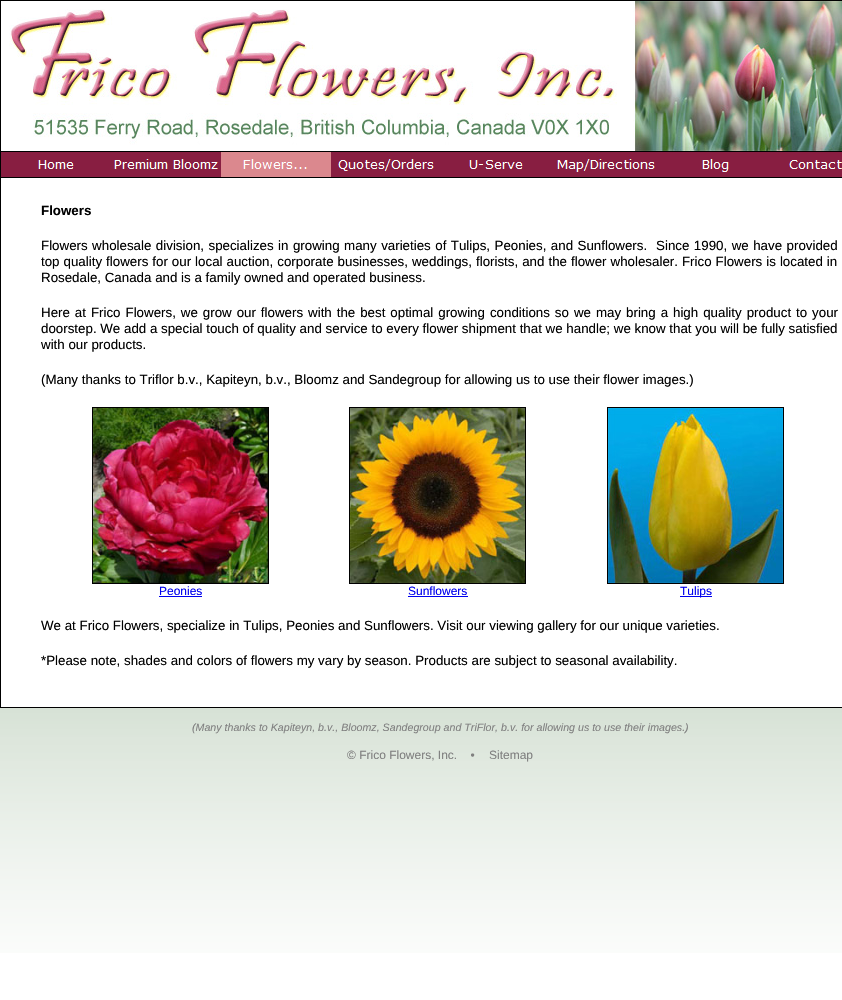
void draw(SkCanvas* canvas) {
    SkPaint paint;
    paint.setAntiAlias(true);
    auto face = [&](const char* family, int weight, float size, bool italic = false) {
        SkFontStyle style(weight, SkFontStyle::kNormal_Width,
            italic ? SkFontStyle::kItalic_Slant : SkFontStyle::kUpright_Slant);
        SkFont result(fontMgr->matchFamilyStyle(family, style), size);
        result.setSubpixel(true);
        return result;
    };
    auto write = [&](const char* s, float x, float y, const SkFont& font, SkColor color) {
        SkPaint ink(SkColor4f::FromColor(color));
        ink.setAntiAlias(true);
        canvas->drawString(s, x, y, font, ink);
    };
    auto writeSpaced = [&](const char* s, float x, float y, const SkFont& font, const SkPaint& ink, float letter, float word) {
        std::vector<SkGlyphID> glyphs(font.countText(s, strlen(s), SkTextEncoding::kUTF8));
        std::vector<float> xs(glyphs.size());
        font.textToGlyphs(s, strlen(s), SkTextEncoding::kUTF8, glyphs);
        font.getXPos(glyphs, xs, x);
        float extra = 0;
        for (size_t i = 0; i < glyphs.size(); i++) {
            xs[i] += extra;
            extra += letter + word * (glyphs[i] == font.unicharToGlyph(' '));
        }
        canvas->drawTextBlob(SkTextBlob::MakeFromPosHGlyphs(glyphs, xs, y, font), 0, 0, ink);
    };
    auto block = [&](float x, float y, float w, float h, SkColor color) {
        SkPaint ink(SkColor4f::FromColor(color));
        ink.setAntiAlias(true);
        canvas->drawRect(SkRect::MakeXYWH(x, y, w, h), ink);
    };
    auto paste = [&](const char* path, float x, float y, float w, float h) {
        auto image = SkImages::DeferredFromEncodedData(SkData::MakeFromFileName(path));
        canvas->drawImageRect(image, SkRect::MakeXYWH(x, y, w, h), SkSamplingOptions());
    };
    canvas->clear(SK_ColorWHITE);
    paste("pic1.png", 0, 708, 842, 245);
    block(0, 0, 842, 1, SK_ColorBLACK);
    block(0, 0, 1, 151, SK_ColorBLACK);
    paste("pic2.png", 9, 1, 833, 150);
    paint.setStyle(SkPaint::kStroke_Style);
    paint.setStrokeWidth(1);
    paint.setColor(SK_ColorBLACK);
    canvas->drawRect(SkRect::MakeXYWH(0.5f, 151.5f, 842, 26), paint);
    paste("pic3.png", 1, 152, 110, 25);
    paste("pic4.png", 111, 152, 110, 25);
    paste("pic5.png", 221, 152, 110, 25);
    paste("pic6.png", 331, 152, 110, 25);
    paste("pic7.png", 441, 152, 110, 25);
    paste("pic8.png", 551, 152, 110, 25);
    paste("pic9.png", 661, 152, 110, 25);
    paste("pic10.png", 771, 152, 71, 25);
    block(0, 178, 1, 510, SK_ColorBLACK);
    auto kFont1 = face("Liberation Sans", 700, 13.33f);
    write("Flowers", 41, 215, kFont1, SK_ColorBLACK);
    auto kFont2 = face("Liberation Sans", 400, 13.33f);
    paint.setStyle(SkPaint::kFill_Style);
    writeSpaced("Flowers wholesale division, specializes in growing many varieties of Tulips, Peonies, and Sunflowers.  Since 1990, we have provided", 41, 250, kFont2, paint, 0, 0.75f);
    writeSpaced("top quality flowers for our local auction, corporate businesses, weddings, florists, and the flower wholesaler. Frico Flowers is located in", 41, 266, kFont2, paint, 0, 0.3f);
    write("Rosedale, Canada and is a family owned and operated business.", 41, 282, kFont2, SK_ColorBLACK);
    writeSpaced("Here at Frico Flowers, we grow our flowers with the best optimal growing conditions so we may bring a high quality product to your", 41, 317, kFont2, paint, 0, 1.25f);
    write("doorstep. We add a special touch of quality and service to every flower shipment that we handle; we know that you will be fully satisfied", 41, 333, kFont2, SK_ColorBLACK);
    write("with our products.", 41, 349, kFont2, SK_ColorBLACK);
    write("(Many thanks to Triflor b.v., Kapiteyn, b.v., Bloomz and Sandegroup for allowing us to use their flower images.)", 41, 384, kFont2, SK_ColorBLACK);
    paint.setStyle(SkPaint::kStroke_Style);
    canvas->drawRect(SkRect::MakeXYWH(92.5f, 407.5f, 176, 176), paint);
    paste("pic11.png", 93, 408, 175, 175);
    auto kFont3 = face("Liberation Sans", 400, 12);
    write("Peonies", 159, 595, kFont3, SkColorSetRGB(0, 0, 238));
    block(159, 596, 43, 1, SkColorSetRGB(0, 0, 238));
    canvas->drawRect(SkRect::MakeXYWH(349.5f, 407.5f, 176, 176), paint);
    paste("pic12.png", 350, 408, 175, 175);
    write("Sunflowers", 408, 595, kFont3, SkColorSetRGB(0, 0, 238));
    block(408, 596, 60, 1, SkColorSetRGB(0, 0, 238));
    canvas->drawRect(SkRect::MakeXYWH(607.5f, 407.5f, 176, 176), paint);
    paste("pic13.png", 608, 408, 175, 175);
    block(680, 596, 32, 1, SkColorSetRGB(0, 0, 238));
    write("Tulips", 680, 595, kFont3, SkColorSetRGB(0, 0, 238));
    write("We at Frico Flowers, specialize in Tulips, Peonies and Sunflowers. Visit our viewing gallery for our unique varieties.", 41, 630, kFont2, SK_ColorBLACK);
    write("*Please note, shades and colors of flowers my vary by season. Products are subject to seasonal availability.", 41, 665, kFont2, SK_ColorBLACK);
    block(0, 707, 842, 1, SK_ColorBLACK);
    block(0, 688, 1, 20, SK_ColorBLACK);
    auto kFont4 = face("Liberation Sans", 400, 10.65f, true);
    write("(Many thanks to Kapiteyn, b.v., Bloomz, Sandegroup and TriFlor, b.v. for allowing us to use their images.)", 192, 731, kFont4, SkColorSetRGB(128, 128, 128));
    write("© Frico Flowers, Inc.    •", 347, 759, kFont3, SkColorSetRGB(128, 128, 128));
    write("Sitemap", 489, 759, kFont3, SkColorSetRGB(128, 128, 128));
}
